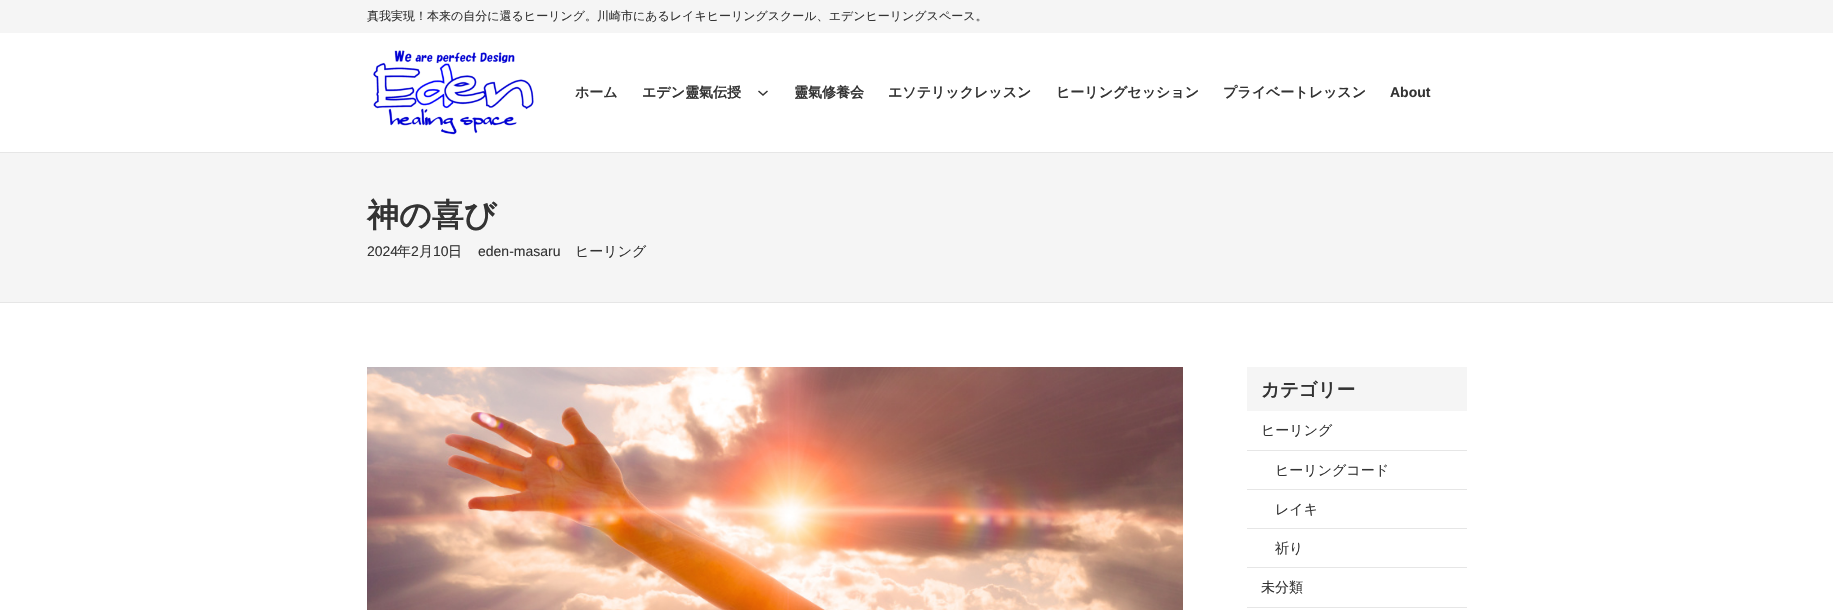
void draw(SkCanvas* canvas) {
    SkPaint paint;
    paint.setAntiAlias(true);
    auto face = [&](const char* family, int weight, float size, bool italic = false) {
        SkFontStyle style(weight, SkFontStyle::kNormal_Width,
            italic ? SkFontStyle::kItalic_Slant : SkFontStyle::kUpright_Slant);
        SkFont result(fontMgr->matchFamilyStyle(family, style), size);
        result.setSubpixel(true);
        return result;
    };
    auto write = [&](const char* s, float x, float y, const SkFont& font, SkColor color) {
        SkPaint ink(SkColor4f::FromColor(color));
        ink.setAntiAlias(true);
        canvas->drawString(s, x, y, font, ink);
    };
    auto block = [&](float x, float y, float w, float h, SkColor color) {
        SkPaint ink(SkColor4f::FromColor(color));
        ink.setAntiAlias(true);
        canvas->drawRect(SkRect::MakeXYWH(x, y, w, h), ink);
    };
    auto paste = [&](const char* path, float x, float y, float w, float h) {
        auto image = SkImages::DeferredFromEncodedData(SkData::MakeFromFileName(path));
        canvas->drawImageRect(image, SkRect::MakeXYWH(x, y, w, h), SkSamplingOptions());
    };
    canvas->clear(SK_ColorWHITE);
    block(0, 0, 1833, 33, SkColorSetRGB(245, 245, 245));
    auto kFont1 = face("WenQuanYi Zen Hei", 500, 12);
    write("真我実現！本来の自分に還るヒーリング。川崎市にあるレイキヒーリングスクール、エデンヒーリングスペース。", 367, 20, kFont1, SkColorSetRGB(51, 51, 51));
    paste("pic1.png", 373, 50, 161, 85);
    auto kFont2 = face("WenQuanYi Zen Hei", 700, 14);
    write("ホーム", 575, 97, kFont2, SkColorSetRGB(51, 51, 51));
    write("エデン靈氣伝授", 642, 97, kFont2, SkColorSetRGB(51, 51, 51));
    paint.setStyle(SkPaint::kStroke_Style);
    paint.setStrokeWidth(1.5f);
    paint.setColor(SkColorSetRGB(51, 51, 51));
    canvas->drawPath(SkPathBuilder().moveTo(758.5f, 91).lineTo(763, 95).lineTo(767.5f, 91).detach(), paint);
    write("靈氣修養会", 794, 97, kFont2, SkColorSetRGB(51, 51, 51));
    write("エソテリックレッスン", 888, 97, kFont2, SkColorSetRGB(51, 51, 51));
    write("ヒーリングセッション", 1056, 97, kFont2, SkColorSetRGB(51, 51, 51));
    write("プライベートレッスン", 1223, 97, kFont2, SkColorSetRGB(51, 51, 51));
    auto kFont3 = face("Liberation Sans", 700, 14);
    write("About", 1390, 97, kFont3, SkColorSetRGB(51, 51, 51));
    block(0, 152, 1833, 1, SkColorSetRGB(230, 230, 230));
    block(0, 153, 1833, 149, SkColorSetRGB(245, 245, 245));
    auto kFont4 = face("WenQuanYi Zen Hei", 700, 32);
    write("神の喜び", 367, 226, kFont4, SkColorSetRGB(51, 51, 51));
    auto kFont5 = face("Liberation Sans", 400, 14);
    write("2024", 367, 256, kFont5, SkColorSetRGB(51, 51, 51));
    auto kFont6 = face("WenQuanYi Zen Hei", 500, 14);
    write("年", 397, 256, kFont6, SkColorSetRGB(51, 51, 51));
    write("2", 411, 256, kFont5, SkColorSetRGB(51, 51, 51));
    write("月", 419, 256, kFont6, SkColorSetRGB(51, 51, 51));
    write("10", 433, 256, kFont5, SkColorSetRGB(51, 51, 51));
    write("日", 448, 256, kFont6, SkColorSetRGB(51, 51, 51));
    write("eden-masaru", 478, 256, kFont5, SkColorSetRGB(51, 51, 51));
    write("ヒーリング", 575, 256, kFont6, SkColorSetRGB(51, 51, 51));
    block(0, 302, 1833, 1, SkColorSetRGB(230, 230, 230));
    paste("pic2.png", 367, 367, 816, 243);
    block(1247, 367, 220, 44, SkColorSetRGB(245, 245, 245));
    auto kFont7 = face("WenQuanYi Zen Hei", 700, 18.5f);
    write("カテゴリー", 1261, 396, kFont7, SkColorSetRGB(51, 51, 51));
    block(1247, 450, 220, 1, SkColorSetRGB(230, 230, 230));
    write("ヒーリング", 1261, 435, kFont6, SkColorSetRGB(51, 51, 51));
    block(1247, 489, 220, 1, SkColorSetRGB(230, 230, 230));
    write("ヒーリングコード", 1275, 475, kFont6, SkColorSetRGB(51, 51, 51));
    block(1247, 528, 220, 1, SkColorSetRGB(230, 230, 230));
    write("レイキ", 1275, 514, kFont6, SkColorSetRGB(51, 51, 51));
    block(1247, 567, 220, 1, SkColorSetRGB(230, 230, 230));
    write("祈り", 1275, 553, kFont6, SkColorSetRGB(51, 51, 51));
    block(1247, 607, 220, 1, SkColorSetRGB(230, 230, 230));
    write("未分類", 1261, 592, kFont6, SkColorSetRGB(51, 51, 51));
}
